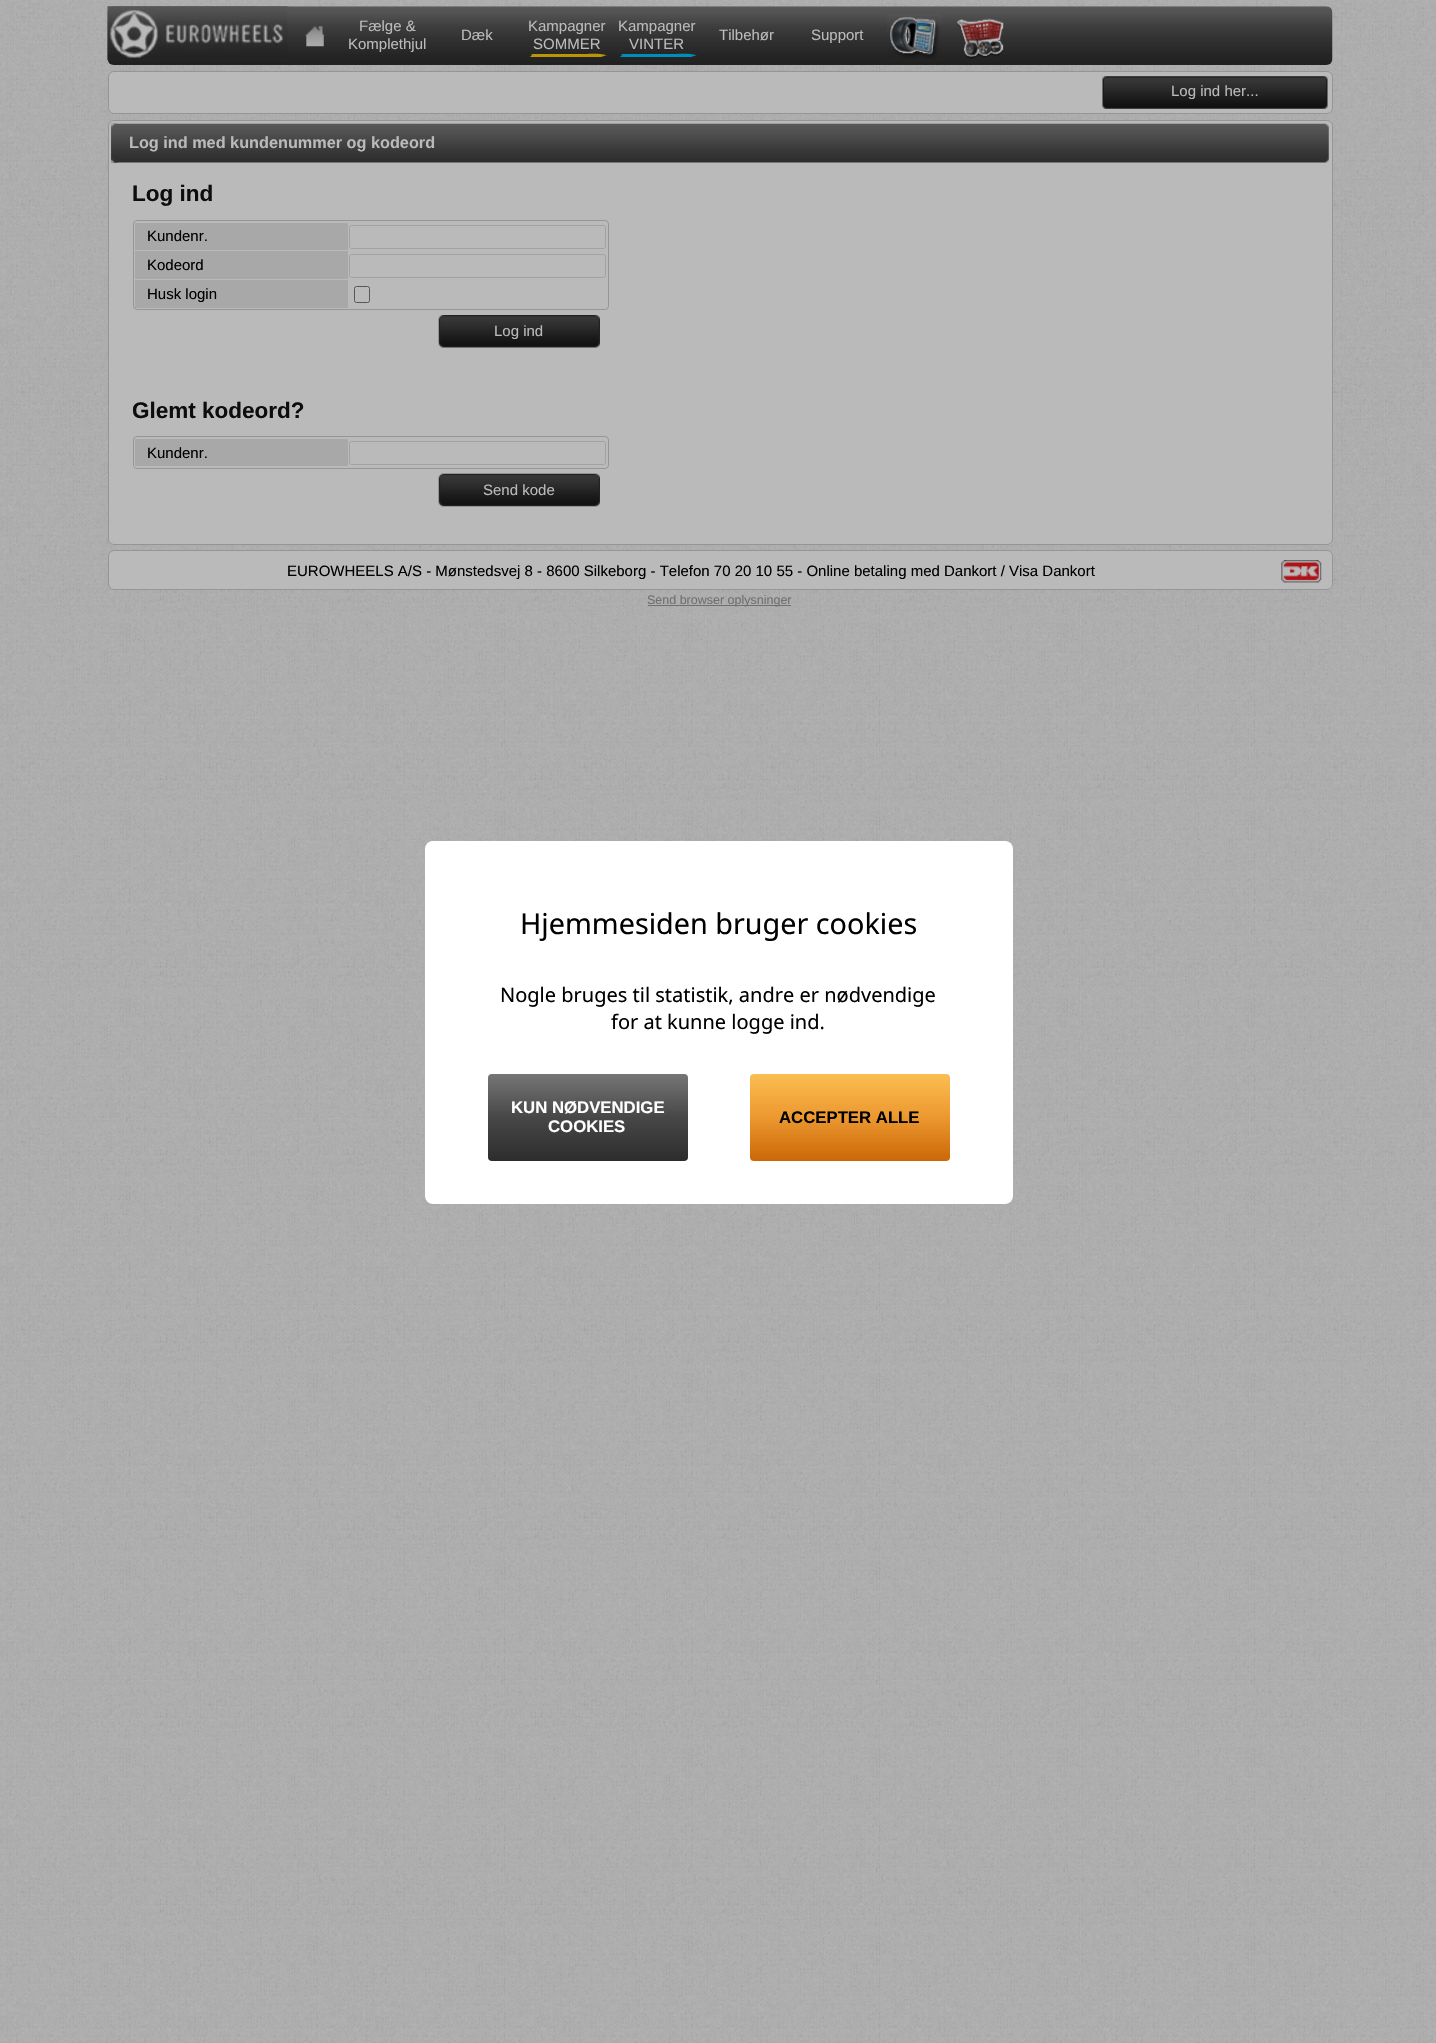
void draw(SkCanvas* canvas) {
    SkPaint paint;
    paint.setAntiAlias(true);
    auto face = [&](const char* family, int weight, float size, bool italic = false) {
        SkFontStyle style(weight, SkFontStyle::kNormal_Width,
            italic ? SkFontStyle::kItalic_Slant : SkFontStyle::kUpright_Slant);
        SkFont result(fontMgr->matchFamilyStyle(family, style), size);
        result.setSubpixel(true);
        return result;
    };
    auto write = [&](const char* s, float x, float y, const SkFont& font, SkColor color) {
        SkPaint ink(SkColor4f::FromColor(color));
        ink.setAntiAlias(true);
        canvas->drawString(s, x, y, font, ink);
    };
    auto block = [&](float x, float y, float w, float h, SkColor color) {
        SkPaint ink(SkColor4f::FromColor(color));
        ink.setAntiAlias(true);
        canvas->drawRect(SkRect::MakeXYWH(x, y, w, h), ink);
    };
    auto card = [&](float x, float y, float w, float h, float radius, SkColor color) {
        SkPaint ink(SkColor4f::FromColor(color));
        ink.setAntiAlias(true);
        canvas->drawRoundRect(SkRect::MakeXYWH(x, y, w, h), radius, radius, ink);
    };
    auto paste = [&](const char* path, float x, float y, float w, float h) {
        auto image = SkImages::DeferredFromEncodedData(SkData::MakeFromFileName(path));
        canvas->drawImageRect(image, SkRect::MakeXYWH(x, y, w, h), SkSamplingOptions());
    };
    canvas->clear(SK_ColorWHITE);
    paste("pic1.png", 0, 0, 1436, 2043);
    paste("pic2.png", 107, 6, 1226, 59);
    paste("pic3.png", 107, 6, 181, 54);
    paste("pic4.png", 305, 26, 20, 21);
    auto kFont1 = face("Liberation Sans", 400, 15);
    write("Fælge &", 359, 31, kFont1, SkColorSetRGB(186, 186, 186));
    write("Komplethjul", 348, 49, kFont1, SkColorSetRGB(186, 186, 186));
    write("Dæk", 461, 40, kFont1, SkColorSetRGB(186, 186, 186));
    write("Kampagner", 528, 31, kFont1, SkColorSetRGB(186, 186, 186));
    write("SOMMER", 533, 49, kFont1, SkColorSetRGB(186, 186, 186));
    paint.setColor(SkColorSetRGB(186, 149, 4));
    canvas->drawPath(SkPathBuilder().moveTo(530, 57).lineTo(532, 55).cubicTo(529, 54, 534, 54, 538, 54).lineTo(581, 54).cubicTo(587, 54, 600, 53, 606, 55).lineTo(607, 55).lineTo(601, 57).lineTo(575, 57).close().detach(), paint);
    write("Kampagner", 618, 31, kFont1, SkColorSetRGB(186, 186, 186));
    write("VINTER", 629, 49, kFont1, SkColorSetRGB(186, 186, 186));
    paint.setColor(SkColorSetRGB(0, 142, 185));
    canvas->drawPath(SkPathBuilder().moveTo(620, 57).lineTo(622, 55).cubicTo(619, 54, 624, 54, 628, 54).lineTo(671, 54).cubicTo(677, 54, 690, 53, 696, 55).lineTo(697, 55).lineTo(691, 57).lineTo(665, 57).close().detach(), paint);
    write("Tilbehør", 719, 40, kFont1, SkColorSetRGB(186, 186, 186));
    write("Support", 811, 40, kFont1, SkColorSetRGB(186, 186, 186));
    paste("pic5.png", 887, 14, 55, 45);
    paste("pic6.png", 887, 29, 1, 2);
    paste("pic7.png", 957, 18, 47, 41);
    paint.setColor(SkColorSetRGB(186, 186, 186));
    canvas->drawRoundRect(SkRect::MakeXYWH(108.5f, 71.5f, 1224, 42), 5.5f, 5.5f, paint);
    paint.setStyle(SkPaint::kStroke_Style);
    paint.setStrokeWidth(1);
    paint.setColor(SkColorSetRGB(149, 149, 149));
    canvas->drawRoundRect(SkRect::MakeXYWH(108.5f, 71.5f, 1224, 42), 5.5f, 5.5f, paint);
    paste("pic8.png", 1102, 76, 226, 33);
    write("Log ind her...", 1171, 96, kFont1, SkColorSetRGB(186, 186, 186));
    paint.setStyle(SkPaint::kFill_Style);
    paint.setColor(SkColorSetRGB(186, 186, 186));
    canvas->drawRoundRect(SkRect::MakeXYWH(108.5f, 120.5f, 1224, 424), 5.5f, 5.5f, paint);
    paint.setStyle(SkPaint::kStroke_Style);
    paint.setColor(SkColorSetRGB(149, 149, 149));
    canvas->drawRoundRect(SkRect::MakeXYWH(108.5f, 120.5f, 1224, 424), 5.5f, 5.5f, paint);
    paste("pic9.png", 111, 123, 1218, 40);
    paste("pic10.png", 111, 123, 7, 40);
    auto kFont2 = face("Liberation Sans", 700, 16.25f);
    write("Log ind med kundenummer og kodeord", 129, 148, kFont2, SkColorSetRGB(186, 186, 186));
    auto kFont3 = face("Liberation Sans", 700, 22.5f);
    write("Log ind", 132, 201, kFont3, SkColorSetRGB(13, 13, 13));
    paint.setColor(SkColorSetRGB(150, 150, 150));
    canvas->drawRoundRect(SkRect::MakeXYWH(133.5f, 220.5f, 475, 89), 3.5f, 3.5f, paint);
    block(135, 223, 213, 27, SkColorSetRGB(168, 168, 168));
    write("Kundenr.", 147, 241, kFont1, SK_ColorBLACK);
    paint.setColor(SkColorSetRGB(162, 162, 162));
    canvas->drawRoundRect(SkRect::MakeXYWH(349.5f, 225.5f, 256, 23), 2, 2, paint);
    block(135, 251, 213, 28, SkColorSetRGB(168, 168, 168));
    write("Kodeord", 147, 270, kFont1, SK_ColorBLACK);
    canvas->drawRoundRect(SkRect::MakeXYWH(349.5f, 254.5f, 256, 23), 2, 2, paint);
    block(135, 280, 213, 28, SkColorSetRGB(168, 168, 168));
    write("Husk login", 147, 299, kFont1, SK_ColorBLACK);
    paint.setColor(SkColorSetRGB(86, 86, 86));
    canvas->drawRoundRect(SkRect::MakeXYWH(354.5f, 286.5f, 15, 16), 2, 2, paint);
    paste("pic11.png", 438, 315, 162, 33);
    write("Log ind", 494, 336, kFont1, SkColorSetRGB(186, 186, 186));
    write("Glemt kodeord?", 132, 418, kFont3, SkColorSetRGB(13, 13, 13));
    paint.setColor(SkColorSetRGB(150, 150, 150));
    canvas->drawRoundRect(SkRect::MakeXYWH(133.5f, 436.5f, 475, 32), 3.5f, 3.5f, paint);
    block(135, 439, 213, 27, SkColorSetRGB(168, 168, 168));
    write("Kundenr.", 147, 458, kFont1, SK_ColorBLACK);
    paint.setColor(SkColorSetRGB(162, 162, 162));
    canvas->drawRoundRect(SkRect::MakeXYWH(349.5f, 441.5f, 256, 23), 2, 2, paint);
    paste("pic12.png", 438, 473, 162, 34);
    write("Send kode", 483, 495, kFont1, SkColorSetRGB(186, 186, 186));
    paint.setStyle(SkPaint::kFill_Style);
    paint.setColor(SkColorSetRGB(186, 186, 186));
    canvas->drawRoundRect(SkRect::MakeXYWH(108.5f, 550.5f, 1224, 39), 5.5f, 5.5f, paint);
    paint.setStyle(SkPaint::kStroke_Style);
    paint.setColor(SkColorSetRGB(149, 149, 149));
    canvas->drawRoundRect(SkRect::MakeXYWH(108.5f, 550.5f, 1224, 39), 5.5f, 5.5f, paint);
    write("EUROWHEELS A/S - Mønstedsvej 8 - 8600 Silkeborg - Telefon 70 20 10 55 - Online betaling med Dankort / Visa Dankort", 287, 576, kFont1, SK_ColorBLACK);
    paste("pic13.png", 1281, 560, 41, 23);
    block(648, 605, 143, 1, SkColorSetRGB(112, 112, 112));
    auto kFont4 = face("Liberation Sans", 400, 12.5f);
    write("Send browser oplysninger", 647, 604, kFont4, SkColorSetRGB(112, 112, 112));
    card(425, 841, 588, 363, 8, SK_ColorWHITE);
    auto kFont5 = face("Noto Sans", 400, 28.75f);
    write("Hjemmesiden bruger cookies", 520, 934, kFont5, SK_ColorBLACK);
    auto kFont6 = face("Noto Sans", 400, 20);
    write("Nogle bruges til statistik, andre er nødvendige", 500, 1002, kFont6, SK_ColorBLACK);
    write("for at kunne logge ind.", 611, 1029, kFont6, SK_ColorBLACK);
    paint.setStyle(SkPaint::kFill_Style);
    {
        const SkColor colors[] = {SkColorSetRGB(118, 118, 118), SkColorSetRGB(71, 71, 71), SkColorSetRGB(45, 45, 45)};
        const float stops[] = {0, 0.5f, 1};
        const SkPoint ends[] = {{588, 1074}, {588, 1161}};
        paint.setShader(SkGradientShader::MakeLinear(ends, colors, stops, 3, SkTileMode::kClamp));
        paint.setAlpha(255);
    }
    canvas->drawRoundRect(SkRect::MakeXYWH(488, 1074, 200, 87), 4, 4, paint);
    auto kFont7 = face("Liberation Sans", 700, 16.75f);
    write("KUN NØDVENDIGE", 511, 1113, kFont7, SK_ColorWHITE);
    write("COOKIES", 548, 1132, kFont7, SK_ColorWHITE);
    {
        const SkColor colors[] = {SkColorSetRGB(251, 190, 82), SkColorSetRGB(236, 152, 47), SkColorSetRGB(203, 103, 7)};
        const float stops[] = {0, 0.5f, 1};
        const SkPoint ends[] = {{850, 1074}, {850, 1161}};
        paint.setShader(SkGradientShader::MakeLinear(ends, colors, stops, 3, SkTileMode::kClamp));
        paint.setAlpha(255);
    }
    canvas->drawRoundRect(SkRect::MakeXYWH(750, 1074, 200, 87), 4, 4, paint);
    write("ACCEPTER ALLE", 779, 1123, kFont7, SK_ColorBLACK);
}
